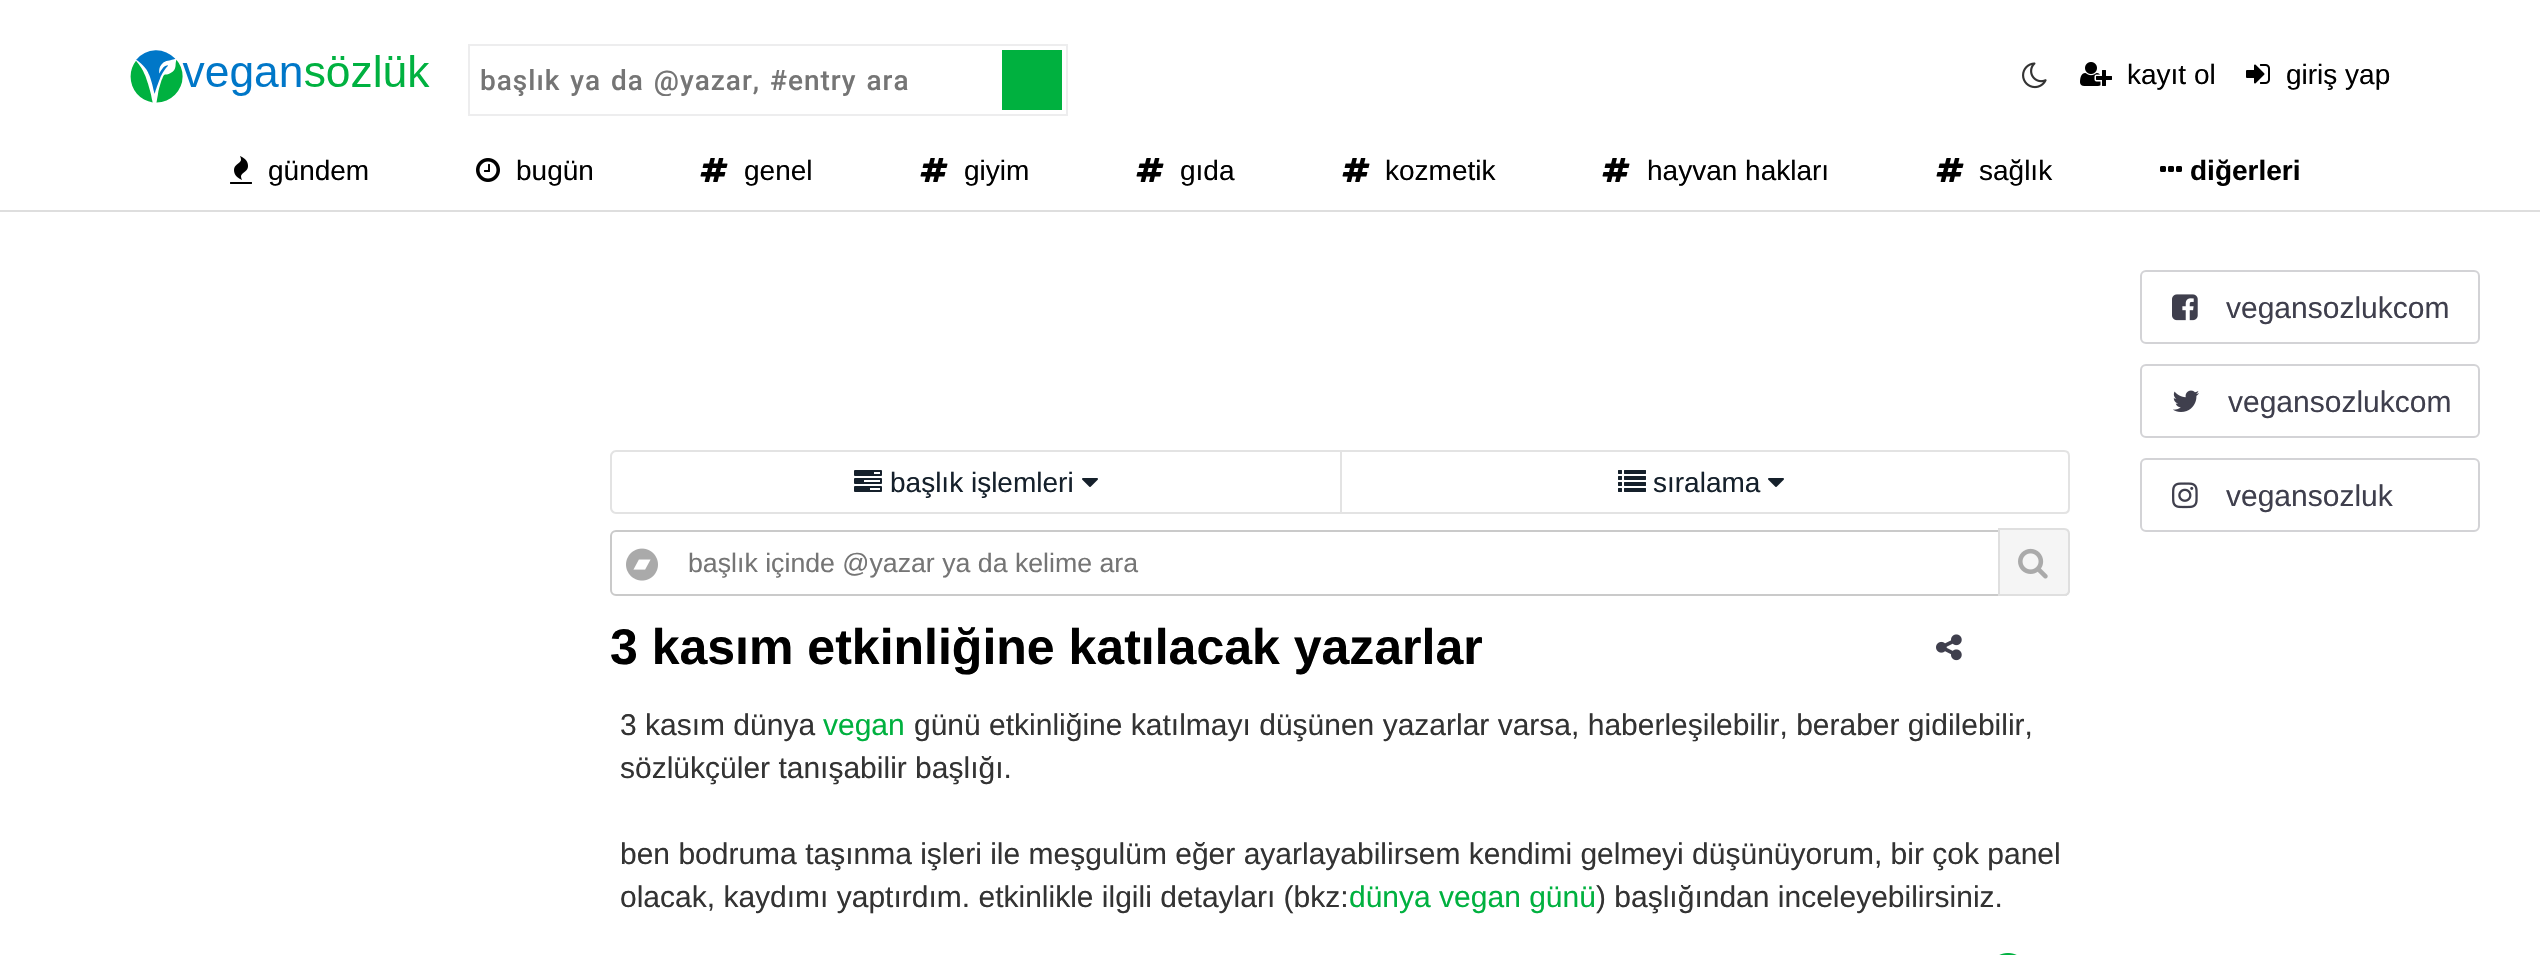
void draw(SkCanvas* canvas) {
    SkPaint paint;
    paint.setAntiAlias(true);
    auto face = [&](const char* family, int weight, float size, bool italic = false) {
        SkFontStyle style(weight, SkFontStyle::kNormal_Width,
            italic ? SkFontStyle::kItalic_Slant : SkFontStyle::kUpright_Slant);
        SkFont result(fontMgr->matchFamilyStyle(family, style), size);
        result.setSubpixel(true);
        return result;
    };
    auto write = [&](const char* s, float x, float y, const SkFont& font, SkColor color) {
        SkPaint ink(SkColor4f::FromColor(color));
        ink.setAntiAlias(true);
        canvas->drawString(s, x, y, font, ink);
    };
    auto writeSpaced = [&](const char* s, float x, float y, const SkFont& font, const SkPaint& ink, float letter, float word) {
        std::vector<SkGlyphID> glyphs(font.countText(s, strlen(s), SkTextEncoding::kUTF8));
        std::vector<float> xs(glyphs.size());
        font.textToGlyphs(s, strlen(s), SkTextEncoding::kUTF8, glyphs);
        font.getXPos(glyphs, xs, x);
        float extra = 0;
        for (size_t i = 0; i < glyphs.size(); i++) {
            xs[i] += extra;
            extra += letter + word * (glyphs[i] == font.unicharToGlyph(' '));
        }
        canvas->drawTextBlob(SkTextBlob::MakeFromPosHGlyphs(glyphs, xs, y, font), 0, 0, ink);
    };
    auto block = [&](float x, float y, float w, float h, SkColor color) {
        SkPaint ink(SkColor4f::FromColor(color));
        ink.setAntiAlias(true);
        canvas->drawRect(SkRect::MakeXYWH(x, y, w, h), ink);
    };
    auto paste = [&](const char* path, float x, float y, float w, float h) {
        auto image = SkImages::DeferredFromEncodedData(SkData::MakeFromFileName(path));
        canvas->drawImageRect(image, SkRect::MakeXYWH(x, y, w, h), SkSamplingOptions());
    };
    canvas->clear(SK_ColorWHITE);
    block(0, 210, 2540, 2, SkColorSetRGB(222, 222, 222));
    paste("pic1.png", 130, 50, 300, 53);
    paint.setStyle(SkPaint::kStroke_Style);
    paint.setStrokeWidth(2);
    paint.setColor(SkColorSetRGB(237, 237, 238));
    canvas->drawRect(SkRect::MakeXYWH(469, 45, 598, 70), paint);
    canvas->save();
    canvas->clipRect(SkRect::MakeXYWH(480, 64, 526, 32));
    auto kFont1 = face("Roboto", 500, 28);
    paint.setStyle(SkPaint::kFill_Style);
    paint.setColor(SkColorSetRGB(117, 117, 117));
    writeSpaced("başlık ya da @yazar, #entry ara", 480, 90, kFont1, paint, 1, 2);
    canvas->restore();
    block(1002, 50, 60, 60, SkColorSetRGB(0, 177, 63));
    paste("pic2.png", 2022, 62, 25, 27);
    paste("pic3.png", 2080, 62, 32, 24);
    auto kFont2 = face("Liberation Sans", 400, 28);
    write("kayıt ol", 2127, 84, kFont2, SK_ColorBLACK);
    paste("pic4.png", 2246, 64, 24, 20);
    write("giriş yap", 2286, 84, kFont2, SK_ColorBLACK);
    paste("pic5.png", 230, 156, 22, 28);
    write("gündem", 268, 180, kFont2, SK_ColorBLACK);
    paste("pic6.png", 476, 158, 24, 24);
    write("bugün", 516, 180, kFont2, SK_ColorBLACK);
    paste("pic7.png", 700, 158, 28, 24);
    write("genel", 744, 180, kFont2, SK_ColorBLACK);
    paste("pic7.png", 920, 158, 28, 24);
    write("giyim", 964, 180, kFont2, SK_ColorBLACK);
    paste("pic7.png", 1136, 158, 28, 24);
    write("gıda", 1180, 180, kFont2, SK_ColorBLACK);
    paste("pic7.png", 1342, 158, 28, 24);
    write("kozmetik", 1385, 180, kFont2, SK_ColorBLACK);
    paste("pic7.png", 1602, 158, 28, 24);
    write("hayvan hakları", 1647, 180, kFont2, SK_ColorBLACK);
    paste("pic7.png", 1936, 158, 28, 24);
    write("sağlık", 1979, 180, kFont2, SK_ColorBLACK);
    paste("pic8.png", 2160, 166, 22, 6);
    auto kFont3 = face("Liberation Sans", 700, 28);
    write("diğerleri", 2190, 180, kFont3, SK_ColorBLACK);
    paint.setStyle(SkPaint::kStroke_Style);
    paint.setColor(SkColorSetRGB(211, 211, 214));
    canvas->drawRoundRect(SkRect::MakeXYWH(2141, 271, 338, 72), 5, 5, paint);
    paste("pic9.png", 2172, 294, 26, 27);
    auto kFont4 = face("Liberation Sans", 400, 30);
    write("vegansozlukcom", 2226, 318, kFont4, SkColorSetRGB(63, 63, 77));
    canvas->drawRoundRect(SkRect::MakeXYWH(2141, 365, 338, 72), 5, 5, paint);
    paste("pic10.png", 2173, 390, 26, 22);
    write("vegansozlukcom", 2228, 412, kFont4, SkColorSetRGB(63, 63, 77));
    canvas->drawRoundRect(SkRect::MakeXYWH(2141, 459, 338, 72), 5, 5, paint);
    paste("pic11.png", 2172, 482, 26, 27);
    write("vegansozluk", 2226, 506, kFont4, SkColorSetRGB(63, 63, 77));
    paint.setStyle(SkPaint::kFill_Style);
    paint.setColor(SkColorSetRGB(227, 227, 227));
    canvas->drawPath(SkPathBuilder(SkPathFillType::kEvenOdd).moveTo(616, 450).lineTo(1340, 450).lineTo(1340, 514).lineTo(616, 514).cubicTo(613, 514, 610, 511, 610, 508).lineTo(610, 456).cubicTo(610, 453, 613, 450, 616, 450).close().moveTo(616, 452).lineTo(1340, 452).lineTo(1340, 512).lineTo(616, 512).cubicTo(614, 512, 612, 510, 612, 508).lineTo(612, 456).cubicTo(612, 454, 614, 452, 616, 452).close().detach(), paint);
    paste("pic12.png", 854, 470, 28, 22);
    write("başlık işlemleri", 890, 492, kFont2, SkColorSetRGB(21, 32, 43));
    paste("pic13.png", 1082, 478, 16, 9);
    paint.setStyle(SkPaint::kStroke_Style);
    canvas->drawPath(SkPathBuilder().moveTo(1341, 451).lineTo(2064, 451).cubicTo(2067, 451, 2069, 453, 2069, 456).lineTo(2069, 508).cubicTo(2069, 511, 2067, 513, 2064, 513).lineTo(1341, 513).close().detach(), paint);
    paste("pic14.png", 1618, 470, 28, 22);
    write("sıralama", 1653, 492, kFont2, SkColorSetRGB(21, 32, 43));
    paste("pic13.png", 1768, 478, 16, 9);
    paint.setColor(SkColorSetRGB(202, 202, 202));
    canvas->drawRoundRect(SkRect::MakeXYWH(611, 531, 1458, 64), 5, 5, paint);
    paste("pic15.png", 626, 548, 32, 33);
    auto kFont5 = face("Liberation Sans", 400, 26.7f);
    write("başlık içinde @yazar ya da kelime ara", 688, 572, kFont5, SkColorSetRGB(117, 117, 117));
    paint.setStyle(SkPaint::kFill_Style);
    paint.setColor(SkColorSetRGB(245, 245, 245));
    canvas->drawPath(SkPathBuilder().moveTo(1998, 528).lineTo(2064, 528).cubicTo(2067.5f, 528, 2070, 530.5f, 2070, 534).lineTo(2070, 590).cubicTo(2070, 593.5f, 2067.5f, 596, 2064, 596).lineTo(1998, 596).close().detach(), paint);
    paint.setStyle(SkPaint::kStroke_Style);
    paint.setColor(SkColorSetARGB(48, 128, 128, 128));
    canvas->drawPath(SkPathBuilder().moveTo(1999, 529).lineTo(2064, 529).cubicTo(2067, 529, 2069, 531, 2069, 534).lineTo(2069, 590).cubicTo(2069, 593, 2067, 595, 2064, 595).lineTo(1999, 595).close().detach(), paint);
    paste("pic16.png", 2018, 548, 30, 31);
    auto kFont6 = face("Liberation Sans", 700, 50);
    write("3 kasım etkinliğine katılacak yazarlar", 610, 664, kFont6, SK_ColorBLACK);
    paste("pic17.png", 1936, 634, 26, 27);
    write("3 kasım dünya", 620, 735, kFont4, SkColorSetRGB(51, 51, 51));
    write("vegan", 823, 735, kFont4, SkColorSetRGB(0, 177, 63));
    write("günü etkinliğine katılmayı düşünen yazarlar varsa, haberleşilebilir, beraber gidilebilir,", 914, 735, kFont4, SkColorSetRGB(51, 51, 51));
    write("sözlükçüler tanışabilir başlığı.", 620, 778, kFont4, SkColorSetRGB(51, 51, 51));
    write("ben bodruma taşınma işleri ile meşgulüm eğer ayarlayabilirsem kendimi gelmeyi düşünüyorum, bir çok panel", 620, 864, kFont4, SkColorSetRGB(51, 51, 51));
    write("olacak, kaydımı yaptırdım. etkinlikle ilgili detayları (bkz:", 620, 907, kFont4, SkColorSetRGB(51, 51, 51));
    write("dünya vegan günü", 1349, 907, kFont4, SkColorSetRGB(0, 177, 63));
    write(") başlığından inceleyebilirsiniz.", 1596, 907, kFont4, SkColorSetRGB(51, 51, 51));
    paste("pic18.png", 1999, 953, 18, 2);
}
